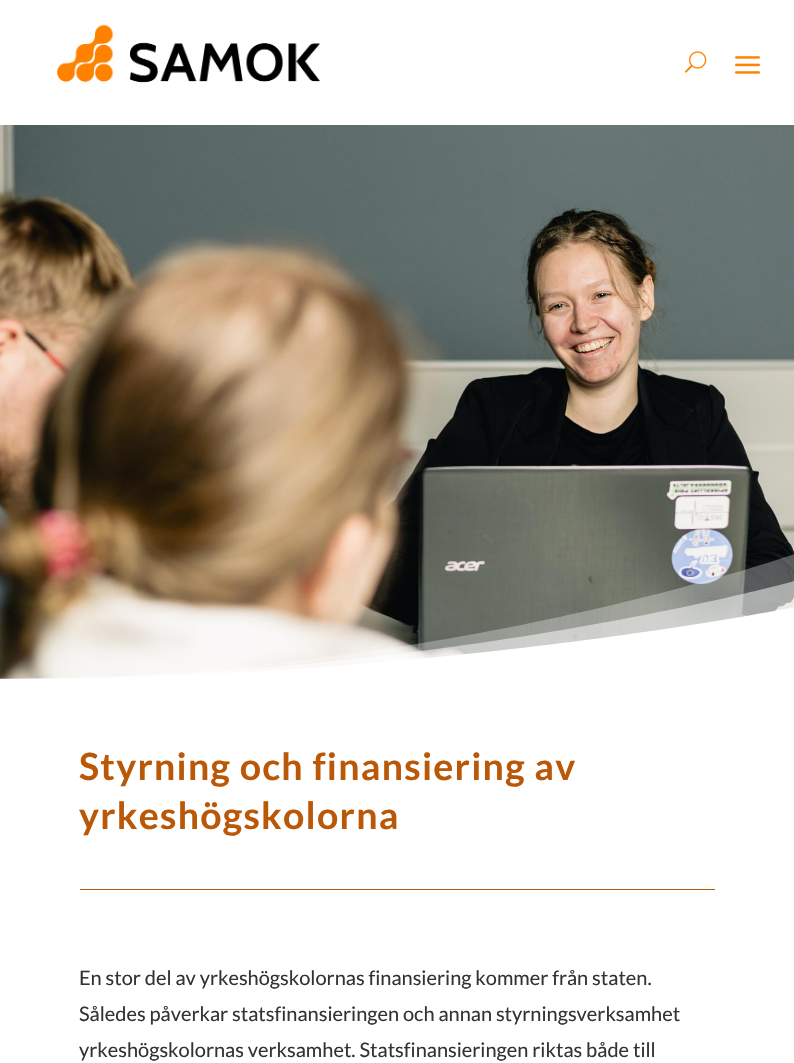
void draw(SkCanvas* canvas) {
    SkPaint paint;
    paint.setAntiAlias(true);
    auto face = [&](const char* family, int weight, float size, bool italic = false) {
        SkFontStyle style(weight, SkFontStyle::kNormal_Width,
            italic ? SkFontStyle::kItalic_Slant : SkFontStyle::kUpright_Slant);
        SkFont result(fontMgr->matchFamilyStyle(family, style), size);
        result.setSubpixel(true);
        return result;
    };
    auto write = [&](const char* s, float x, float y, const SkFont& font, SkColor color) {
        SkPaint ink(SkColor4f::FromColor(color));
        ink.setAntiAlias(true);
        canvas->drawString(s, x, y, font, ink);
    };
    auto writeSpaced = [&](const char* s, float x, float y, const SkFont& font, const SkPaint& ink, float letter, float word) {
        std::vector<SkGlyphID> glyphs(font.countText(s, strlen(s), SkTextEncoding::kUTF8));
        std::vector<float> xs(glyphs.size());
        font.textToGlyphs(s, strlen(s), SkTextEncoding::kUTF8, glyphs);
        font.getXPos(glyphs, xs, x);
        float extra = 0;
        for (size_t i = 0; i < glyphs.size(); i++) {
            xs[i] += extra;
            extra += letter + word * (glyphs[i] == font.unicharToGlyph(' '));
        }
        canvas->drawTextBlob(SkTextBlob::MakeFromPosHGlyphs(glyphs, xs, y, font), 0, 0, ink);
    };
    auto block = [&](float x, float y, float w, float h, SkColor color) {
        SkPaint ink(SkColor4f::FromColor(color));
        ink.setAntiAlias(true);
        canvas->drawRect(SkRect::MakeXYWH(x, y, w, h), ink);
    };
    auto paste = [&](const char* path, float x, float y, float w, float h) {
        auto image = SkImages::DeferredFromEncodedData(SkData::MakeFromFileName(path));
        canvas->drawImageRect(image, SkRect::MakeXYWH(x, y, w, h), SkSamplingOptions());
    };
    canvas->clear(SK_ColorWHITE);
    paste("pic1.png", 57, 24, 263, 59);
    paste("pic2.png", 685, 51, 22, 22);
    paste("pic3.png", 735, 56, 25, 18);
    paste("pic4.png", 0, 125, 794, 554);
    paint.setColor(SkColorSetARGB(77, 255, 255, 255));
    canvas->drawPath(SkPathBuilder().moveTo(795, 679).lineTo(0, 679).cubicTo(439, 679, 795, 554, 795, 554).close().detach(), paint);
    paint.setColor(SkColorSetARGB(128, 255, 255, 255));
    canvas->drawPath(SkPathBuilder().moveTo(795, 679).lineTo(0, 679).cubicTo(439, 679, 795, 581, 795, 581).close().detach(), paint);
    paint.setColor(SK_ColorWHITE);
    canvas->drawPath(SkPathBuilder().moveTo(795, 679).lineTo(0, 679).cubicTo(439, 679, 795, 607, 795, 607).close().detach(), paint);
    auto kFont1 = face("Lato", 700, 37.5f);
    paint.setColor(SkColorSetRGB(186, 88, 7));
    writeSpaced("Styrning och finansiering av", 79, 780, kFont1, paint, 1.25f, 0);
    writeSpaced("yrkeshögskolorna", 79, 829, kFont1, paint, 1.25f, 0);
    block(80, 889, 635, 1, SkColorSetRGB(186, 88, 7));
    auto kFont2 = face("Lato", 400, 20);
    write("En stor del av yrkeshögskolornas finansiering kommer från staten.", 79, 985, kFont2, SkColorSetRGB(51, 51, 51));
    write("Således påverkar statsfinansieringen och annan styrningsverksamhet", 79, 1021, kFont2, SkColorSetRGB(51, 51, 51));
    write("yrkeshögskolornas verksamhet. Statsfinansieringen riktas både till", 79, 1057, kFont2, SkColorSetRGB(51, 51, 51));
}
